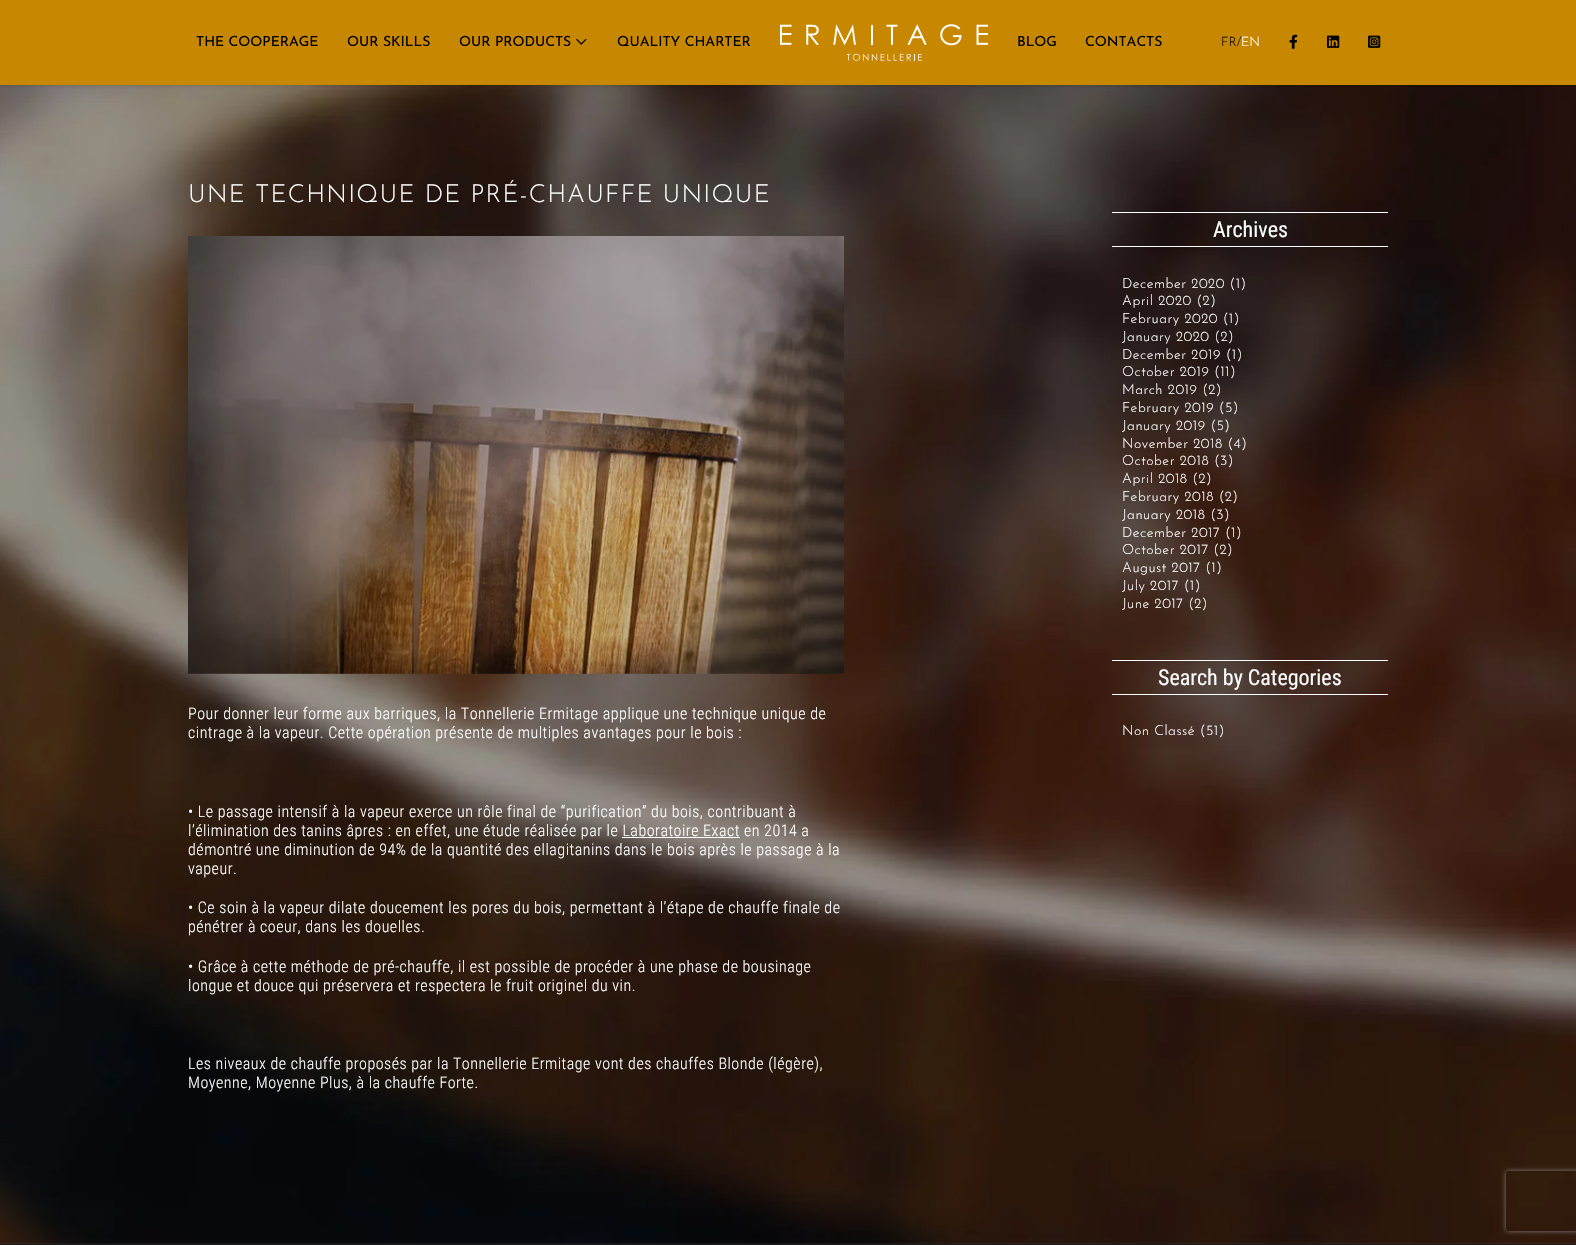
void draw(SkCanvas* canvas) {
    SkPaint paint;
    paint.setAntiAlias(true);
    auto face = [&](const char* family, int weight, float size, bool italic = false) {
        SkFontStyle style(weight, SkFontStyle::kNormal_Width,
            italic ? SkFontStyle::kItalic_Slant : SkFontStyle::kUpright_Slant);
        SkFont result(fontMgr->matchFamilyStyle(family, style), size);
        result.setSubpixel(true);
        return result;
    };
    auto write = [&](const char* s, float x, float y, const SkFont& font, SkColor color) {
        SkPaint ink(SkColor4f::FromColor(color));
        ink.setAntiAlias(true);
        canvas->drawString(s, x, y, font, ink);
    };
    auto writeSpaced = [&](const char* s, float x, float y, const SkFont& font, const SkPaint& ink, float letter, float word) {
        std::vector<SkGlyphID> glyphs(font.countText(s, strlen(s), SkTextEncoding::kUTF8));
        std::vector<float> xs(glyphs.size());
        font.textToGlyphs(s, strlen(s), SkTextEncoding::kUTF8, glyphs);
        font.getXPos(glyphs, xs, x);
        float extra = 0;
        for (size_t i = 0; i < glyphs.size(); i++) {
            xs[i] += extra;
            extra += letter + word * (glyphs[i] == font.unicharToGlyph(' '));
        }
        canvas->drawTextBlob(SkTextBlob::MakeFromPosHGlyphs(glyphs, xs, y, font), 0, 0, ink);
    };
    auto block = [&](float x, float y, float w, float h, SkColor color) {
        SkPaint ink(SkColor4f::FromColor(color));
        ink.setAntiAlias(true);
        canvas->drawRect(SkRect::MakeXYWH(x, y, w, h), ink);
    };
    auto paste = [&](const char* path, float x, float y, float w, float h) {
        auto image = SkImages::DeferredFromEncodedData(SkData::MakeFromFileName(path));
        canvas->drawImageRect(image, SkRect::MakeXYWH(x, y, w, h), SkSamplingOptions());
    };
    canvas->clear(SK_ColorWHITE);
    paste("pic6.png", 0, 85, 1576, 1159);
    paint.setColor(SkColorSetARGB(31, 0, 0, 0));
    paint.setMaskFilter(SkMaskFilter::MakeBlur(kNormal_SkBlurStyle, 1.5f));
    canvas->drawRect(SkRect::MakeXYWH(0, 1, 1576, 85), paint);
    paint.setMaskFilter(nullptr);
    block(0, 0, 1576, 85, SkColorSetRGB(199, 136, 0));
    auto kFont1 = face("Josefin Sans", 400, 14);
    write("THE COOPERAGE", 196, 46, kFont1, SK_ColorBLACK);
    write("OUR SKILLS", 347, 46, kFont1, SK_ColorBLACK);
    write("OUR PRODUCTS", 459, 46, kFont1, SK_ColorBLACK);
    paste("pic1.png", 576, 38, 11, 7);
    write("QUALITY CHARTER", 617, 46, kFont1, SK_ColorBLACK);
    paste("pic2.png", 780, 24, 208, 37);
    write("BLOG", 1017, 46, kFont1, SK_ColorBLACK);
    write("CONTACTS", 1085, 46, kFont1, SK_ColorBLACK);
    auto kFont2 = face("Josefin Sans", 300, 13);
    write("FR/", 1221, 46, kFont2, SK_ColorBLACK);
    write("EN", 1241, 46, kFont2, SK_ColorWHITE);
    paste("pic3.png", 1289, 34, 9, 15);
    paste("pic4.png", 1327, 35, 13, 13);
    paste("pic5.png", 1368, 35, 13, 13);
    auto kFont3 = face("Josefin Sans", 300, 25);
    paint.setColor(SK_ColorWHITE);
    writeSpaced("UNE TECHNIQUE DE PRÉ-CHAUFFE UNIQUE", 188, 202, kFont3, paint, 1.25f, 0);
    paste("pic7.png", 188, 236, 656, 438);
    auto kFont4 = face("Roboto Condensed", 300, 16);
    writeSpaced("Pour donner leur forme aux barriques, la Tonnellerie Ermitage applique une technique unique de", 188, 719, kFont4, paint, 0.5f, 0);
    writeSpaced("cintrage à la vapeur. Cette opération présente de multiples avantages pour le bois :", 188, 738, kFont4, paint, 0.5f, 0);
    writeSpaced("• Le passage intensif à la vapeur exerce un rôle final de “purification” du bois, contribuant à", 188, 817, kFont4, paint, 0.5f, 0);
    writeSpaced("l’élimination des tanins âpres : en effet, une étude réalisée par le Laboratoire Exact en 2014 a", 188, 836, kFont4, paint, 0.5f, 0);
    block(622, 837, 118, 1, SK_ColorWHITE);
    writeSpaced("démontré une diminution de 94% de la quantité des ellagitanins dans le bois après le passage à la", 188, 855, kFont4, paint, 0.5f, 0);
    writeSpaced("vapeur.", 188, 874, kFont4, paint, 0.5f, 0);
    writeSpaced("• Ce soin à la vapeur dilate doucement les pores du bois, permettant à l’étape de chauffe finale de", 188, 913, kFont4, paint, 0.5f, 0);
    writeSpaced("pénétrer à coeur, dans les douelles.", 188, 932, kFont4, paint, 0.5f, 0);
    writeSpaced("• Grâce à cette méthode de pré-chauffe, il est possible de procéder à une phase de bousinage", 188, 972, kFont4, paint, 0.5f, 0);
    writeSpaced("longue et douce qui préservera et respectera le fruit originel du vin.", 188, 991, kFont4, paint, 0.5f, 0);
    writeSpaced("Les niveaux de chauffe proposés par la Tonnellerie Ermitage vont des chauffes Blonde (légère),", 188, 1069, kFont4, paint, 0.5f, 0);
    writeSpaced("Moyenne, Moyenne Plus, à la chauffe Forte.", 188, 1088, kFont4, paint, 0.5f, 0);
    block(1112, 212, 276, 1, SK_ColorWHITE);
    block(1112, 246, 276, 1, SK_ColorWHITE);
    auto kFont5 = face("Roboto Condensed", 400, 22);
    write("Archives", 1213, 237, kFont5, SK_ColorWHITE);
    auto kFont6 = face("Josefin Sans", 300, 14);
    writeSpaced("December 2020 (1)", 1122, 288, kFont6, paint, 0.5f, 0);
    writeSpaced("April 2020 (2)", 1122, 305, kFont6, paint, 0.5f, 0);
    writeSpaced("February 2020 (1)", 1122, 323, kFont6, paint, 0.5f, 0);
    writeSpaced("January 2020 (2)", 1122, 341, kFont6, paint, 0.5f, 0);
    writeSpaced("December 2019 (1)", 1122, 359, kFont6, paint, 0.5f, 0);
    writeSpaced("October 2019 (11)", 1122, 376, kFont6, paint, 0.5f, 0);
    writeSpaced("March 2019 (2)", 1122, 394, kFont6, paint, 0.5f, 0);
    writeSpaced("February 2019 (5)", 1122, 412, kFont6, paint, 0.5f, 0);
    writeSpaced("January 2019 (5)", 1122, 430, kFont6, paint, 0.5f, 0);
    writeSpaced("November 2018 (4)", 1122, 448, kFont6, paint, 0.5f, 0);
    writeSpaced("October 2018 (3)", 1122, 465, kFont6, paint, 0.5f, 0);
    writeSpaced("April 2018 (2)", 1122, 483, kFont6, paint, 0.5f, 0);
    writeSpaced("February 2018 (2)", 1122, 501, kFont6, paint, 0.5f, 0);
    writeSpaced("January 2018 (3)", 1122, 519, kFont6, paint, 0.5f, 0);
    writeSpaced("December 2017 (1)", 1122, 537, kFont6, paint, 0.5f, 0);
    writeSpaced("October 2017 (2)", 1122, 554, kFont6, paint, 0.5f, 0);
    writeSpaced("August 2017 (1)", 1122, 572, kFont6, paint, 0.5f, 0);
    writeSpaced("July 2017 (1)", 1122, 590, kFont6, paint, 0.5f, 0);
    writeSpaced("June 2017 (2)", 1122, 608, kFont6, paint, 0.5f, 0);
    block(1112, 660, 276, 1, SK_ColorWHITE);
    block(1112, 694, 276, 1, SK_ColorWHITE);
    write("Search by Categories", 1158, 685, kFont5, SK_ColorWHITE);
    writeSpaced("Non Classé (51)", 1122, 735, kFont6, paint, 0.5f, 0);
    block(0, 1244, 1576, 1, SkColorSetRGB(26, 26, 26));
    canvas->save();
    canvas->clipPath(SkPathBuilder(SkPathFillType::kEvenOdd).moveTo(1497, 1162).lineTo(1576, 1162).lineTo(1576, 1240).lineTo(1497, 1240).close().moveTo(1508, 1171).lineTo(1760, 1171).cubicTo(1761, 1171, 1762, 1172, 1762, 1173).lineTo(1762, 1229).cubicTo(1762, 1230, 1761, 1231, 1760, 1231).lineTo(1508, 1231).cubicTo(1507, 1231, 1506, 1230, 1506, 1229).lineTo(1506, 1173).cubicTo(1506, 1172, 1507, 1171, 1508, 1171).close().detach(), true);
    paint.setColor(SkColorSetRGB(128, 128, 128));
    paint.setMaskFilter(SkMaskFilter::MakeBlur(kNormal_SkBlurStyle, 2.5f));
    canvas->drawRoundRect(SkRect::MakeXYWH(1506, 1171, 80, 60), 2, 2, paint);
    paint.setMaskFilter(nullptr);
    canvas->restore();
}
